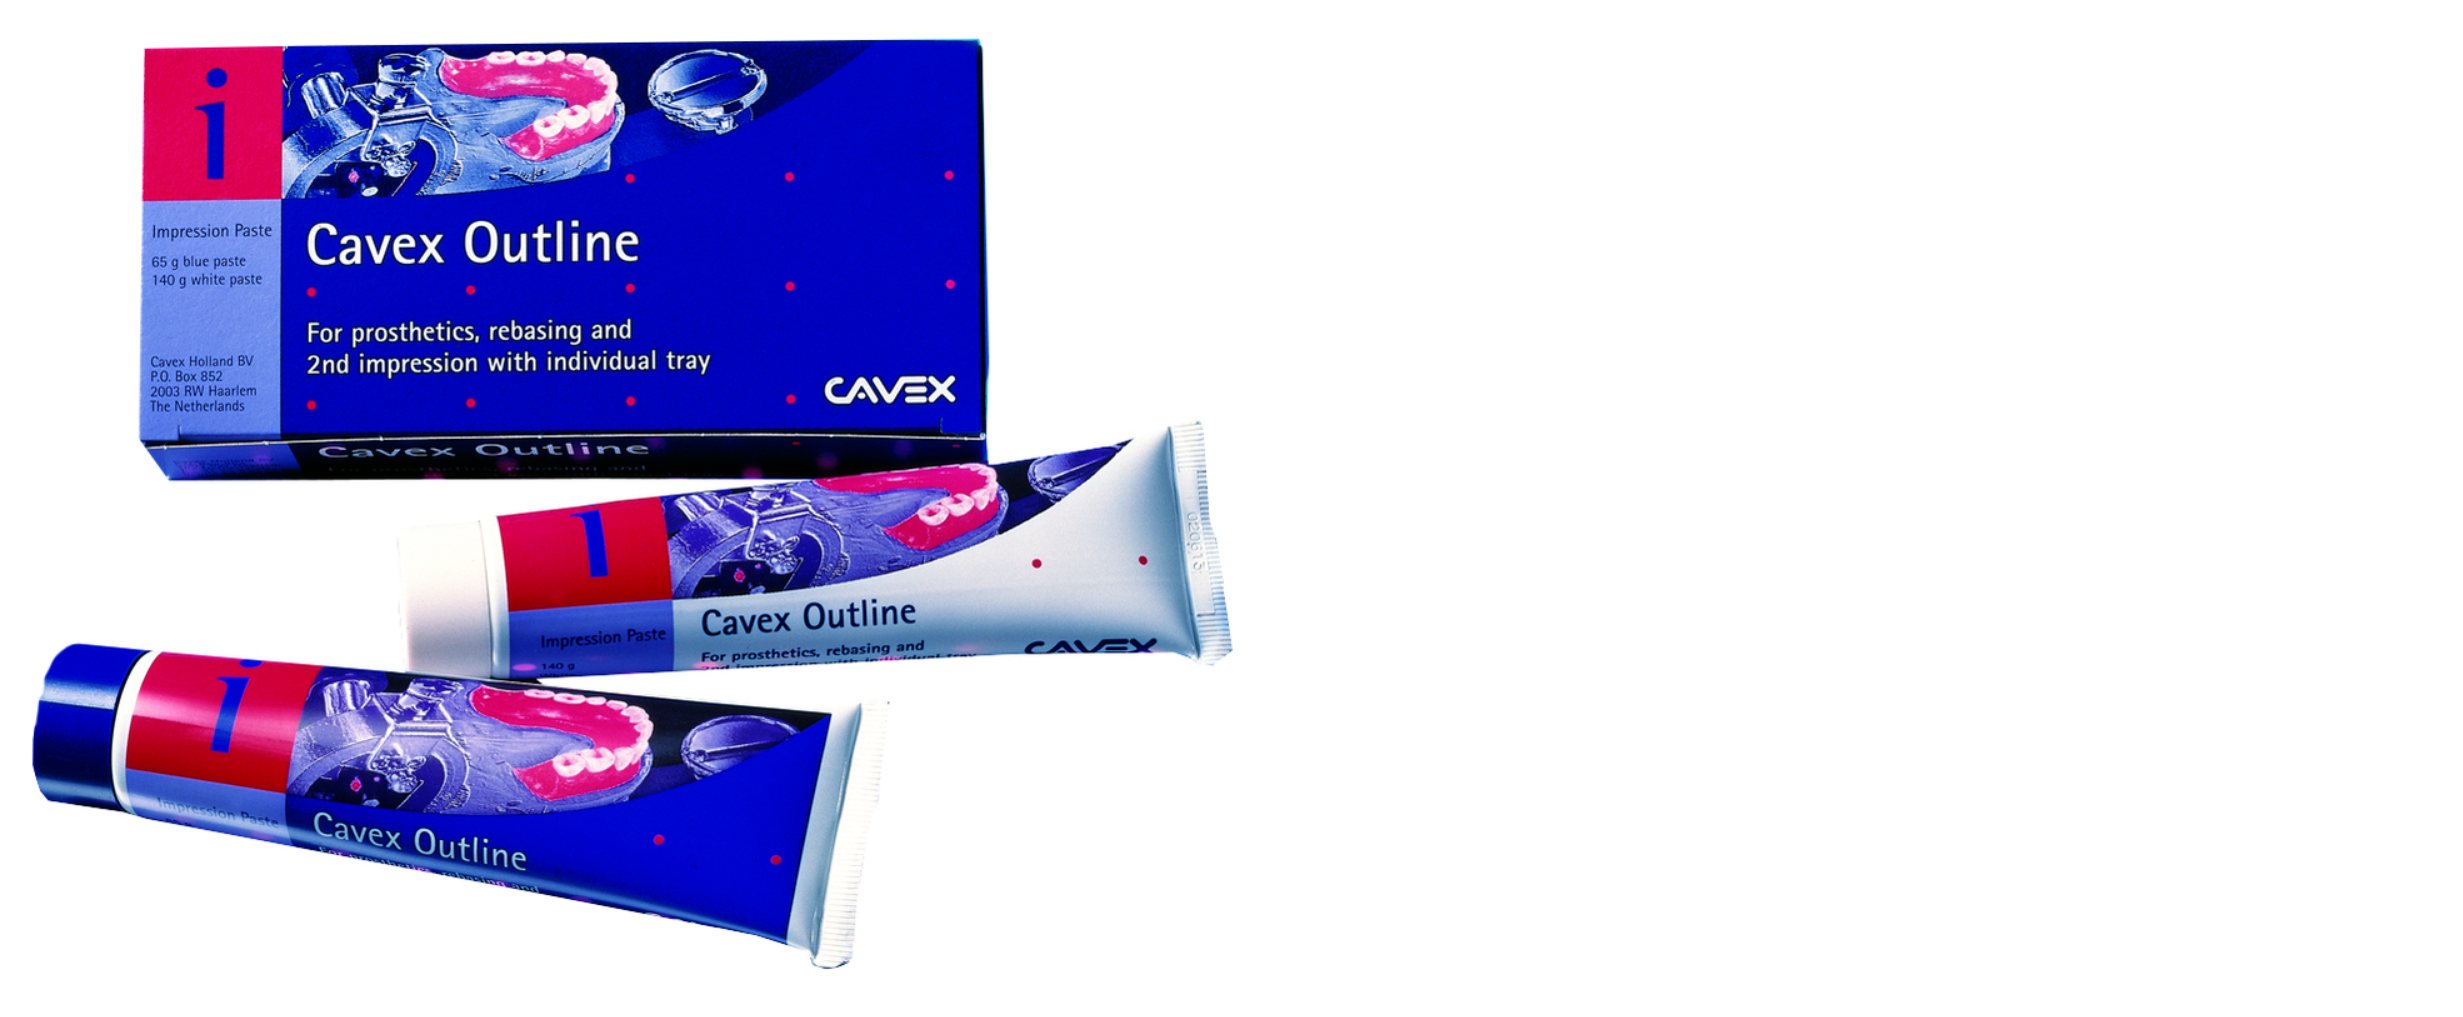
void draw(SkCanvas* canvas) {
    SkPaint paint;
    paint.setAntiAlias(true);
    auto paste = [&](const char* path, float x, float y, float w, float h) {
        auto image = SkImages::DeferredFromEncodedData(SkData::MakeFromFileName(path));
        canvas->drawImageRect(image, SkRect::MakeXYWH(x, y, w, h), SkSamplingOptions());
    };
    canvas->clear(SK_ColorWHITE);
    paste("pic1.png", 32, 38, 1201, 932);
}
